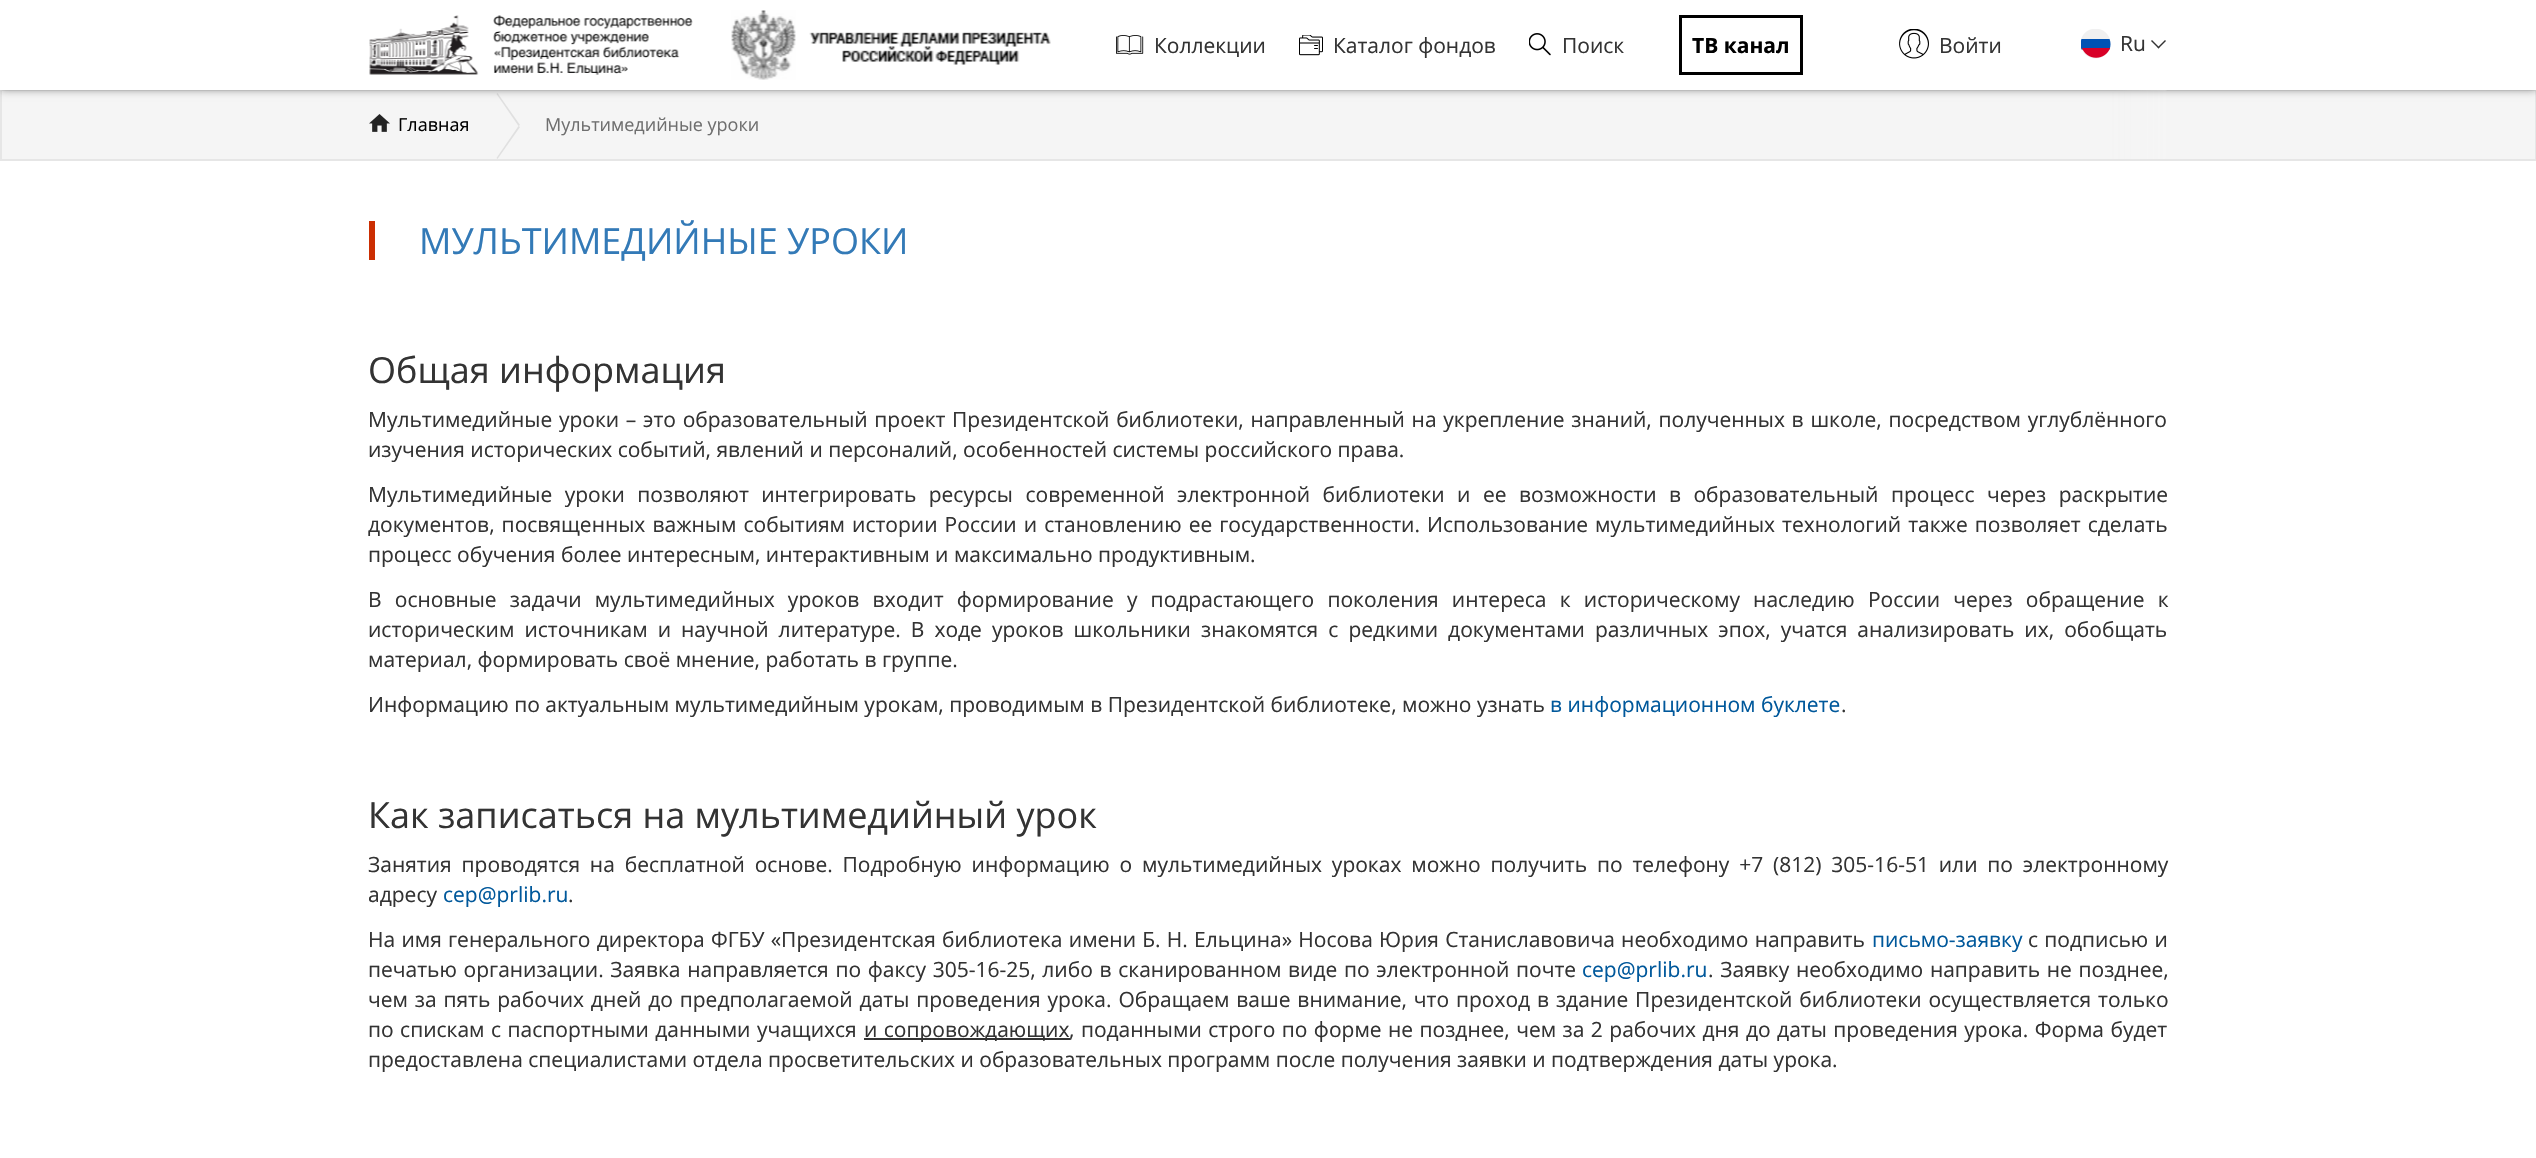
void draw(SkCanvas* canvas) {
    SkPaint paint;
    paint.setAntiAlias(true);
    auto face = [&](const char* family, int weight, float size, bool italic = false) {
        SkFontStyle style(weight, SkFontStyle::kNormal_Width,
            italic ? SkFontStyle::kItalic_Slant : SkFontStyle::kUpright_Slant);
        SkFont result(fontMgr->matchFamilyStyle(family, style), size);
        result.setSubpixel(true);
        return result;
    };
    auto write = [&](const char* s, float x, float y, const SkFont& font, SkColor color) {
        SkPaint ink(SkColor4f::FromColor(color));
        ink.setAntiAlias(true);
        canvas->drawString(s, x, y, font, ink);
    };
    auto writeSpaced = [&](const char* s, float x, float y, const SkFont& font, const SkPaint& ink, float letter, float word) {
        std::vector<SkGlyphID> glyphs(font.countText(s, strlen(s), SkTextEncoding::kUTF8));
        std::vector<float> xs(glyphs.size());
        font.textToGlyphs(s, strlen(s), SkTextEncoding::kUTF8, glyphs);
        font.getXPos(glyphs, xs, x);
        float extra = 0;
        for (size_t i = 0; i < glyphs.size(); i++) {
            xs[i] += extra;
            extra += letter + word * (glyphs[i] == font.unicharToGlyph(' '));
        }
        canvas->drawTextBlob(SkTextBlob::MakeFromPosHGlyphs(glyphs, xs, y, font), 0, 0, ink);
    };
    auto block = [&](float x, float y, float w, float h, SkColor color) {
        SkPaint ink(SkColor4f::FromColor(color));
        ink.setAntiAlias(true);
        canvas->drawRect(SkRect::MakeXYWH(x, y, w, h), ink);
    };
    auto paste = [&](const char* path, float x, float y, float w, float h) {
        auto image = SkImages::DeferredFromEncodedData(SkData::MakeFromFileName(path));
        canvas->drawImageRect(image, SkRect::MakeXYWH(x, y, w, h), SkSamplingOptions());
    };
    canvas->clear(SK_ColorWHITE);
    paint.setColor(SkColorSetRGB(245, 245, 245));
    canvas->drawRect(SkRect::MakeXYWH(1, 90, 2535, 70), paint);
    paint.setStyle(SkPaint::kStroke_Style);
    paint.setStrokeWidth(2);
    paint.setColor(SkColorSetRGB(230, 230, 230));
    canvas->drawRect(SkRect::MakeXYWH(1, 90, 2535, 70), paint);
    paint.setStyle(SkPaint::kFill_Style);
    paint.setColor(SkColorSetRGB(224, 224, 224));
    canvas->drawPath(SkPathBuilder().moveTo(496.5f, 94).lineTo(497.5f, 93).lineTo(520, 125).lineTo(518.5f, 126).close().detach(), paint);
    {
        const SkColor colors[] = {SkColorSetRGB(245, 245, 245), SkColorSetARGB(0, 245, 245, 245)};
        const float stops[] = {0, 1};
        const SkPoint ends[] = {{2169, 125}, {2109, 125}};
        paint.setShader(SkGradientShader::MakeLinear(ends, colors, stops, 2, SkTileMode::kClamp));
        paint.setAlpha(255);
    }
    canvas->drawPath(SkPathBuilder().moveTo(2109, 90).lineTo(2164, 90).cubicTo(2167, 90, 2169, 92, 2169, 95).lineTo(2169, 154).cubicTo(2169, 157, 2167, 159, 2164, 159).lineTo(2109, 159).close().detach(), paint);
    paint.setShader(nullptr);
    paint.setColor(SkColorSetARGB(102, 0, 0, 0));
    paint.setMaskFilter(SkMaskFilter::MakeBlur(kNormal_SkBlurStyle, 4));
    canvas->drawRect(SkRect::MakeXYWH(0, 0, 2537, 90), paint);
    paint.setMaskFilter(nullptr);
    block(0, 0, 2536, 90, SK_ColorWHITE);
    paste("pic1.png", 369, 15, 324, 60);
    paste("pic2.png", 731, 10, 320, 70);
    paste("pic3.png", 1116, 35, 28, 20);
    auto kFont1 = face("Open Sans", 400, 21);
    write("Коллекции", 1154, 53, kFont1, SkColorSetRGB(51, 51, 51));
    paste("pic4.png", 1299, 35, 24, 21);
    write("Каталог фондов", 1333, 53, kFont1, SkColorSetRGB(51, 51, 51));
    paste("pic5.png", 1529, 33, 22, 23);
    write("Поиск", 1562, 53, kFont1, SkColorSetRGB(51, 51, 51));
    paint.setStyle(SkPaint::kStroke_Style);
    paint.setStrokeWidth(3);
    paint.setColor(SK_ColorBLACK);
    canvas->drawRect(SkRect::MakeXYWH(1680.5f, 16.5f, 121, 57), paint);
    auto kFont2 = face("Open Sans", 700, 21);
    write("ТВ канал", 1692, 53, kFont2, SK_ColorBLACK);
    paste("pic6.png", 1899, 29, 30, 30);
    write("Войти", 1939, 53, kFont1, SkColorSetRGB(51, 51, 51));
    paste("pic7.png", 2081, 29, 30, 30);
    write("Ru", 2120, 51, kFont1, SkColorSetRGB(51, 51, 51));
    paint.setStyle(SkPaint::kFill_Style);
    paint.setColor(SkColorSetRGB(51, 51, 51));
    canvas->drawPath(SkPathBuilder().moveTo(2157.5f, 47.5f).lineTo(2165, 40).lineTo(2166, 41).lineTo(2158.5f, 48.5f).close().detach(), paint);
    canvas->drawPath(SkPathBuilder().moveTo(2151, 41).lineTo(2152, 40).lineTo(2159.5f, 47.5f).lineTo(2158.5f, 48.5f).close().detach(), paint);
    paste("pic8.png", 369, 114, 21, 18);
    auto kFont3 = face("Open Sans", 400, 18);
    write("Главная", 398, 131, kFont3, SK_ColorBLACK);
    paint.setColor(SkColorSetRGB(224, 224, 224));
    canvas->drawPath(SkPathBuilder().moveTo(518.5f, 126).lineTo(520, 127).lineTo(497.5f, 159).lineTo(496.5f, 158).close().detach(), paint);
    write("Мультимедийные уроки", 545, 131, kFont3, SkColorSetRGB(111, 111, 111));
    block(369, 221, 6, 39, SkColorSetRGB(203, 46, 2));
    auto kFont4 = face("Open Sans", 400, 36);
    write("МУЛЬТИМЕДИЙНЫЕ УРОКИ", 419, 254, kFont4, SkColorSetRGB(51, 122, 183));
    write("Общая информация", 368, 383, kFont4, SkColorSetRGB(51, 51, 51));
    paint.setColor(SkColorSetRGB(51, 51, 51));
    writeSpaced("Мультимедийные уроки – это образовательный проект Президентской библиотеки, направленный на укрепление знаний, полученных в школе, посредством углублённого", 368, 427, kFont1, paint, 0, 1.25f);
    write("изучения исторических событий, явлений и персоналий, особенностей системы российского права.", 368, 457, kFont1, SkColorSetRGB(51, 51, 51));
    writeSpaced("Мультимедийные уроки позволяют интегрировать ресурсы современной электронной библиотеки и ее возможности в образовательный процесс через раскрытие", 368, 502, kFont1, paint, 0, 7);
    writeSpaced("документов, посвященных важным событиям истории России и становлению ее государственности. Использование мультимедийных технологий также позволяет сделать", 368, 532, kFont1, paint, 0, 1.6f);
    write("процесс обучения более интересным, интерактивным и максимально продуктивным.", 368, 562, kFont1, SkColorSetRGB(51, 51, 51));
    writeSpaced("В основные задачи мультимедийных уроков входит формирование у подрастающего поколения интереса к историческому наследию России через обращение к", 368, 607, kFont1, paint, 0, 7.75f);
    writeSpaced("историческим источникам и научной литературе. В ходе уроков школьники знакомятся с редкими документами различных эпох, учатся анализировать их, обобщать", 368, 637, kFont1, paint, 0, 4.6f);
    write("материал, формировать своё мнение, работать в группе.", 368, 667, kFont1, SkColorSetRGB(51, 51, 51));
    write("Информацию по актуальным мультимедийным урокам, проводимым в Президентской библиотеке, можно узнать", 368, 712, kFont1, SkColorSetRGB(51, 51, 51));
    write("в информационном буклете", 1550, 712, kFont1, SkColorSetRGB(0, 88, 155));
    write(".", 1841, 712, kFont1, SkColorSetRGB(51, 51, 51));
    write("Как записаться на мультимедийный урок", 368, 828, kFont4, SkColorSetRGB(51, 51, 51));
    writeSpaced("Занятия проводятся на бесплатной основе. Подробную информацию о мультимедийных уроках можно получить по телефону +7 (812) 305-16-51 или по электронному", 368, 872, kFont1, paint, 0, 4.4f);
    write("адресу", 368, 902, kFont1, SkColorSetRGB(51, 51, 51));
    write("cep@prlib.ru", 443, 902, kFont1, SkColorSetRGB(0, 88, 155));
    write(".", 568, 902, kFont1, SkColorSetRGB(51, 51, 51));
    writeSpaced("На имя генерального директора ФГБУ «Президентская библиотека имени Б. Н. Ельцина» Носова Юрия Станиславовича необходимо направить", 368, 947, kFont1, paint, 0, 0.8f);
    write("письмо-заявку", 1872, 947, kFont1, SkColorSetRGB(0, 88, 155));
    writeSpaced("с подписью и", 2028, 947, kFont1, paint, 0, 0.8f);
    writeSpaced("печатью организации. Заявка направляется по факсу 305-16-25, либо в сканированном виде по электронной почте", 368, 977, kFont1, paint, 0, 1.25f);
    write("cep@prlib.ru", 1582, 977, kFont1, SkColorSetRGB(0, 88, 155));
    writeSpaced(". Заявку необходимо направить не позднее,", 1708, 977, kFont1, paint, 0, 1.25f);
    writeSpaced("чем за пять рабочих дней до предполагаемой даты проведения урока. Обращаем ваше внимание, что проход в здание Президентской библиотеки осуществляется только", 368, 1007, kFont1, paint, 0, 1.4f);
    writeSpaced("по спискам с паспортными данными учащихся", 368, 1037, kFont1, paint, 0, 1);
    block(864, 1038, 206, 2, SkColorSetRGB(51, 51, 51));
    writeSpaced("и сопровождающих", 864, 1037, kFont1, paint, 0, 1);
    writeSpaced(", поданными строго по форме не позднее, чем за 2 рабочих дня до даты проведения урока. Форма будет", 1069, 1037, kFont1, paint, 0, 1);
    write("предоставлена специалистами отдела просветительских и образовательных программ после получения заявки и подтверждения даты урока.", 368, 1067, kFont1, SkColorSetRGB(51, 51, 51));
}
